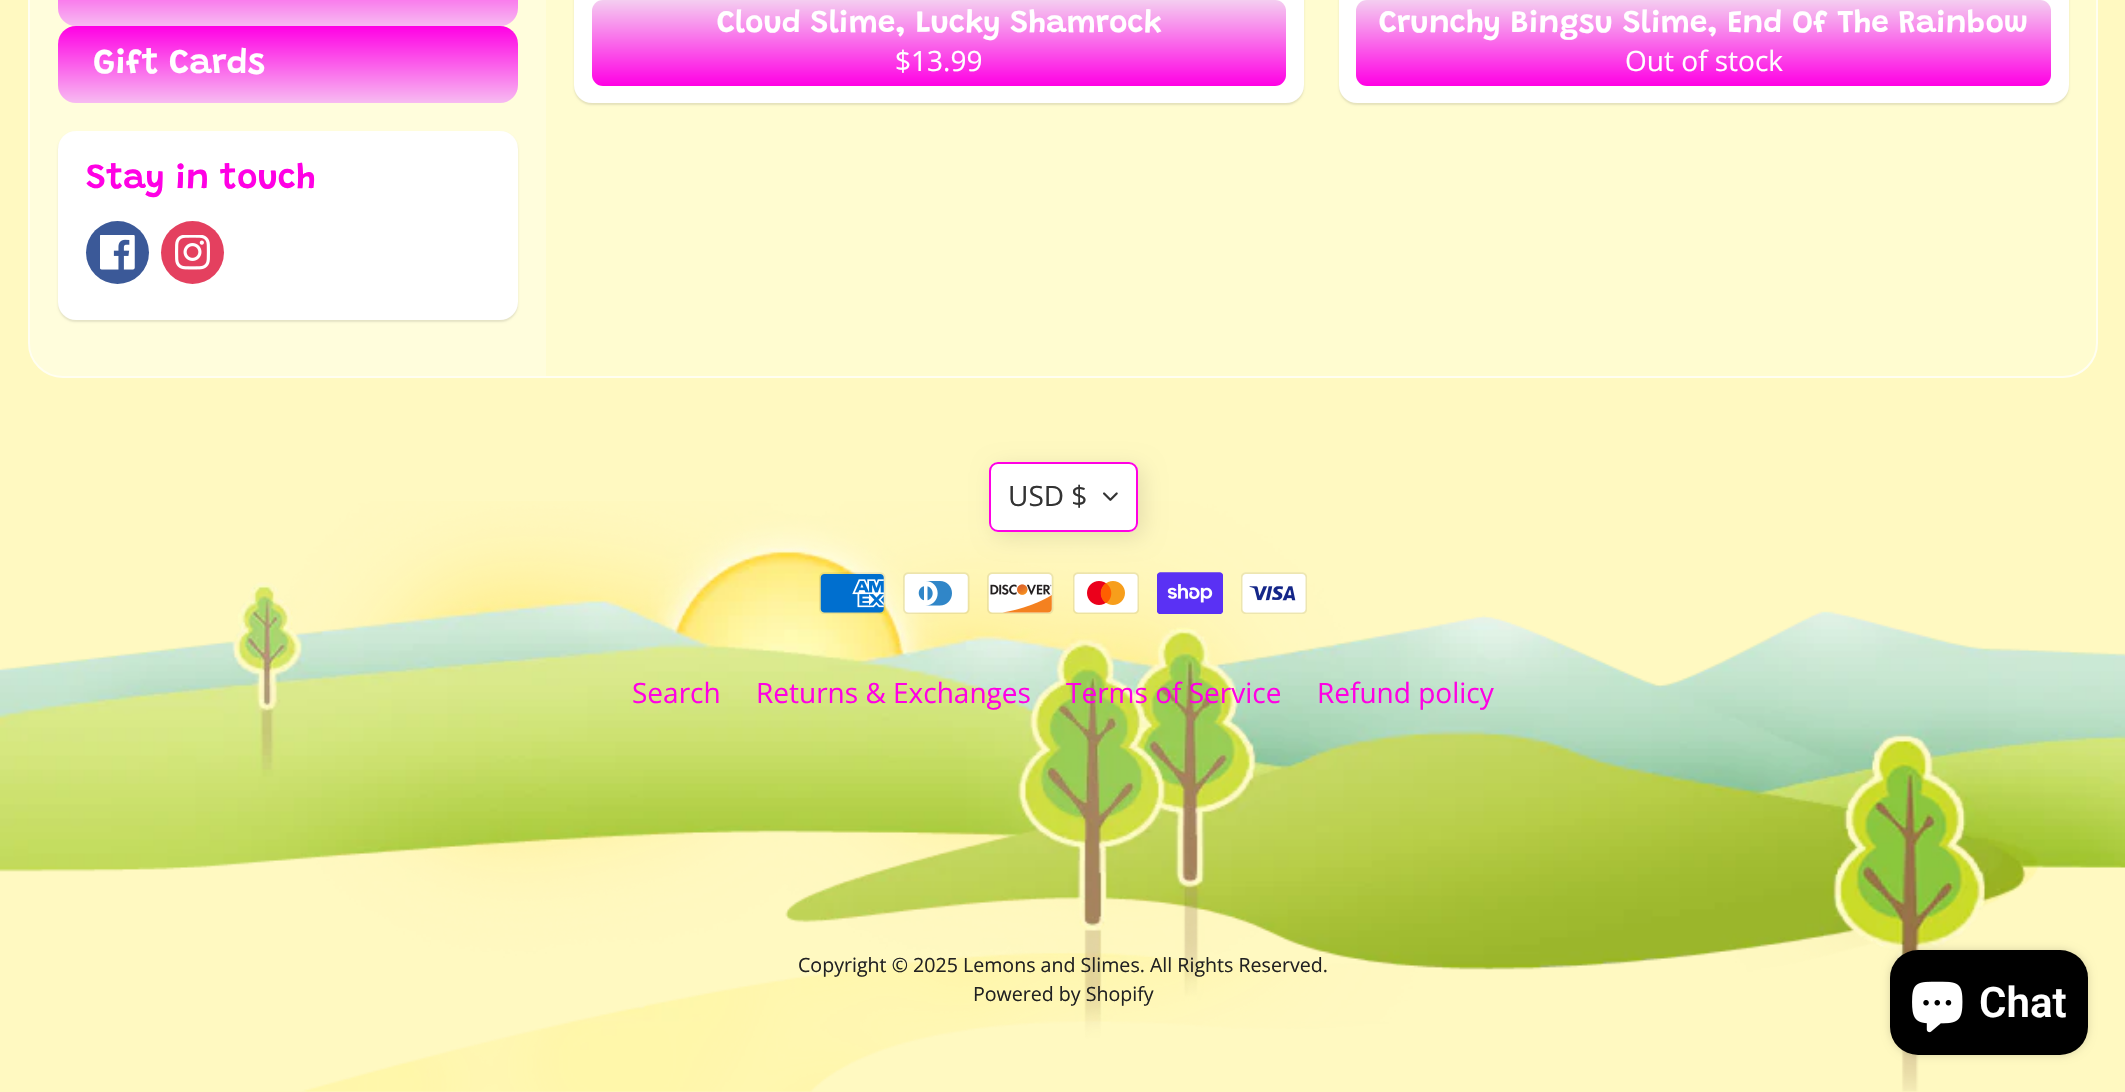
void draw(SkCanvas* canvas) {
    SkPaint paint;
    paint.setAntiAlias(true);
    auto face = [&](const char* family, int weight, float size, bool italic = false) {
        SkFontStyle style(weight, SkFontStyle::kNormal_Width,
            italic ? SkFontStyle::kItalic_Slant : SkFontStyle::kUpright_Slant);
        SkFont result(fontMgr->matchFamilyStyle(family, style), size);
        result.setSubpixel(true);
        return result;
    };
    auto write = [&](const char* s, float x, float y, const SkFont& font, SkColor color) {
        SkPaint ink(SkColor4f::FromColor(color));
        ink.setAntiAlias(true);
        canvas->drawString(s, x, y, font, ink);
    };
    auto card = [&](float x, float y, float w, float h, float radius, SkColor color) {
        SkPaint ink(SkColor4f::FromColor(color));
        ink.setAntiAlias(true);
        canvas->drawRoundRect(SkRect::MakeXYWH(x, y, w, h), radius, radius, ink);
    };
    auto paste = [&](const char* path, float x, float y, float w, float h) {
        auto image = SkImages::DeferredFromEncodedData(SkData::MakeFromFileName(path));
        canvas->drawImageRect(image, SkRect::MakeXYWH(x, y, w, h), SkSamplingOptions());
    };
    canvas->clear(SkColorSetRGB(255, 249, 193));
    card(28, -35, 2070, 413, 35, SkColorSetRGB(255, 252, 208));
    paint.setStyle(SkPaint::kStroke_Style);
    paint.setStrokeWidth(2);
    paint.setColor(SkColorSetARGB(179, 255, 255, 255));
    canvas->drawRoundRect(SkRect::MakeXYWH(29, -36, 2068, 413), 34, 34, paint);
    paint.setStyle(SkPaint::kFill_Style);
    paint.setColor(SkColorSetARGB(64, 255, 255, 255));
    canvas->drawPath(SkPathBuilder().moveTo(63, -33).lineTo(546, -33).lineTo(546, 376).lineTo(63, 376).cubicTo(45, 376, 30, 361, 30, 343).lineTo(30, 0).cubicTo(30, -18, 45, -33, 63, -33).close().detach(), paint);
    {
        const SkColor colors[] = {SkColorSetRGB(255, 0, 228), SkColorSetRGB(247, 187, 241)};
        const float stops[] = {0, 1};
        const SkPoint ends[] = {{288, -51}, {288, 26}};
        paint.setShader(SkGradientShader::MakeLinear(ends, colors, stops, 2, SkTileMode::kClamp));
        paint.setAlpha(255);
    }
    canvas->drawRoundRect(SkRect::MakeXYWH(58, -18, 460, 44), 18, 18, paint);
    {
        const SkColor colors[] = {SkColorSetRGB(255, 0, 228), SkColorSetRGB(247, 187, 241)};
        const float stops[] = {0, 1};
        const SkPoint ends[] = {{288, 26}, {288, 103}};
        paint.setShader(SkGradientShader::MakeLinear(ends, colors, stops, 2, SkTileMode::kClamp));
        paint.setAlpha(255);
    }
    canvas->drawRoundRect(SkRect::MakeXYWH(58, 26, 460, 77), 18, 18, paint);
    auto kFont1 = face("Grandstander", 600, 35);
    write("Gift Cards", 93, 73, kFont1, SK_ColorWHITE);
    paint.setShader(nullptr);
    paint.setColor(SkColorSetARGB(26, 0, 0, 0));
    paint.setMaskFilter(SkMaskFilter::MakeBlur(kNormal_SkBlurStyle, 1));
    canvas->drawRoundRect(SkRect::MakeXYWH(58, 133, 460, 189), 18, 18, paint);
    paint.setMaskFilter(nullptr);
    card(58, 131, 460, 189, 18, SK_ColorWHITE);
    write("Stay in touch", 86, 188, kFont1, SkColorSetRGB(255, 0, 228));
    paint.setColor(SkColorSetRGB(59, 89, 152));
    canvas->drawCircle(117.5f, 252.5f, 31.5f, paint);
    paste("pic1.png", 100, 235, 35, 35);
    paint.setColor(SkColorSetRGB(228, 64, 95));
    canvas->drawCircle(192.5f, 252.5f, 31.5f, paint);
    paste("pic2.png", 175, 235, 35, 35);
    paint.setColor(SkColorSetARGB(26, 0, 0, 0));
    paint.setMaskFilter(SkMaskFilter::MakeBlur(kNormal_SkBlurStyle, 1));
    canvas->drawRoundRect(SkRect::MakeXYWH(574, -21, 730, 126), 18, 18, paint);
    paint.setMaskFilter(nullptr);
    card(574, -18, 730, 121, 18, SK_ColorWHITE);
    {
        const SkColor colors[] = {SkColorSetRGB(244, 206, 240), SkColorSetRGB(255, 0, 228)};
        const float stops[] = {0, 1};
        const SkPoint ends[] = {{939, 0}, {939, 86}};
        paint.setShader(SkGradientShader::MakeLinear(ends, colors, stops, 2, SkTileMode::kClamp));
        paint.setAlpha(255);
    }
    canvas->drawRoundRect(SkRect::MakeXYWH(592, 0, 694, 86), 11, 11, paint);
    auto kFont2 = face("Grandstander", 600, 31.5f);
    write("Cloud Slime, Lucky Shamrock", 717, 32, kFont2, SK_ColorWHITE);
    auto kFont3 = face("Open Sans", 400, 28);
    write("$13.99", 895, 71, kFont3, SK_ColorWHITE);
    paint.setShader(nullptr);
    paint.setColor(SkColorSetARGB(26, 0, 0, 0));
    paint.setMaskFilter(SkMaskFilter::MakeBlur(kNormal_SkBlurStyle, 1));
    canvas->drawRoundRect(SkRect::MakeXYWH(1339, -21, 730, 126), 18, 18, paint);
    paint.setMaskFilter(nullptr);
    card(1339, -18, 730, 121, 18, SK_ColorWHITE);
    {
        const SkColor colors[] = {SkColorSetRGB(244, 206, 240), SkColorSetRGB(255, 0, 228)};
        const float stops[] = {0, 1};
        const SkPoint ends[] = {{1704, 0}, {1704, 86}};
        paint.setShader(SkGradientShader::MakeLinear(ends, colors, stops, 2, SkTileMode::kClamp));
        paint.setAlpha(255);
    }
    canvas->drawRoundRect(SkRect::MakeXYWH(1356, 0, 695, 86), 11, 11, paint);
    write("Crunchy Bingsu Slime, End Of The Rainbow", 1379, 32, kFont2, SK_ColorWHITE);
    write("Out of stock", 1625, 71, kFont3, SK_ColorWHITE);
    paste("pic3.png", 0, 501, 2125, 591);
    paint.setShader(nullptr);
    paint.setColor(SkColorSetARGB(26, 0, 0, 0));
    paint.setMaskFilter(SkMaskFilter::MakeBlur(kNormal_SkBlurStyle, 10.5f));
    canvas->drawRoundRect(SkRect::MakeXYWH(994, 467, 149, 70), 9, 9, paint);
    paint.setMaskFilter(nullptr);
    card(989, 462, 149, 70, 9, SK_ColorWHITE);
    paste("pic4.png", 1103, 492, 15, 9);
    paint.setStyle(SkPaint::kStroke_Style);
    paint.setColor(SkColorSetRGB(255, 0, 228));
    canvas->drawRoundRect(SkRect::MakeXYWH(990, 463, 147, 68), 8, 8, paint);
    write("USD $", 1008, 506, kFont3, SkColorSetRGB(51, 51, 51));
    paste("pic5.png", 819, 572, 67, 42);
    paste("pic6.png", 903, 572, 67, 42);
    paste("pic7.png", 987, 572, 67, 42);
    paste("pic8.png", 1073, 572, 66, 42);
    paste("pic9.png", 1157, 572, 66, 42);
    paste("pic10.png", 1241, 572, 66, 42);
    write("Search", 632, 703, kFont3, SkColorSetRGB(255, 0, 228));
    write("Returns & Exchanges", 756, 703, kFont3, SkColorSetRGB(255, 0, 228));
    write("Terms of Service", 1066, 703, kFont3, SkColorSetRGB(255, 0, 228));
    write("Refund policy", 1317, 703, kFont3, SkColorSetRGB(255, 0, 228));
    auto kFont4 = face("Open Sans", 400, 19.6f);
    write("Copyright © 2025 Lemons and Slimes. All Rights Reserved.", 798, 972, kFont4, SkColorSetRGB(34, 34, 34));
    write("Powered by Shopify", 973, 1001, kFont4, SkColorSetRGB(34, 34, 34));
    paint.setStyle(SkPaint::kFill_Style);
    paint.setColor(SkColorSetARGB(38, 0, 0, 0));
    paint.setMaskFilter(SkMaskFilter::MakeBlur(kNormal_SkBlurStyle, 4.5f));
    canvas->drawRoundRect(SkRect::MakeXYWH(1890, 950, 198, 105), 28, 28, paint);
    paint.setMaskFilter(nullptr);
    card(1890, 950, 198, 105, 28, SK_ColorBLACK);
    paste("pic11.png", 1912, 981, 51, 52);
    auto kFont5 = face("Roboto", 600, 42);
    write("Chat", 1979, 1017, kFont5, SK_ColorWHITE);
}
